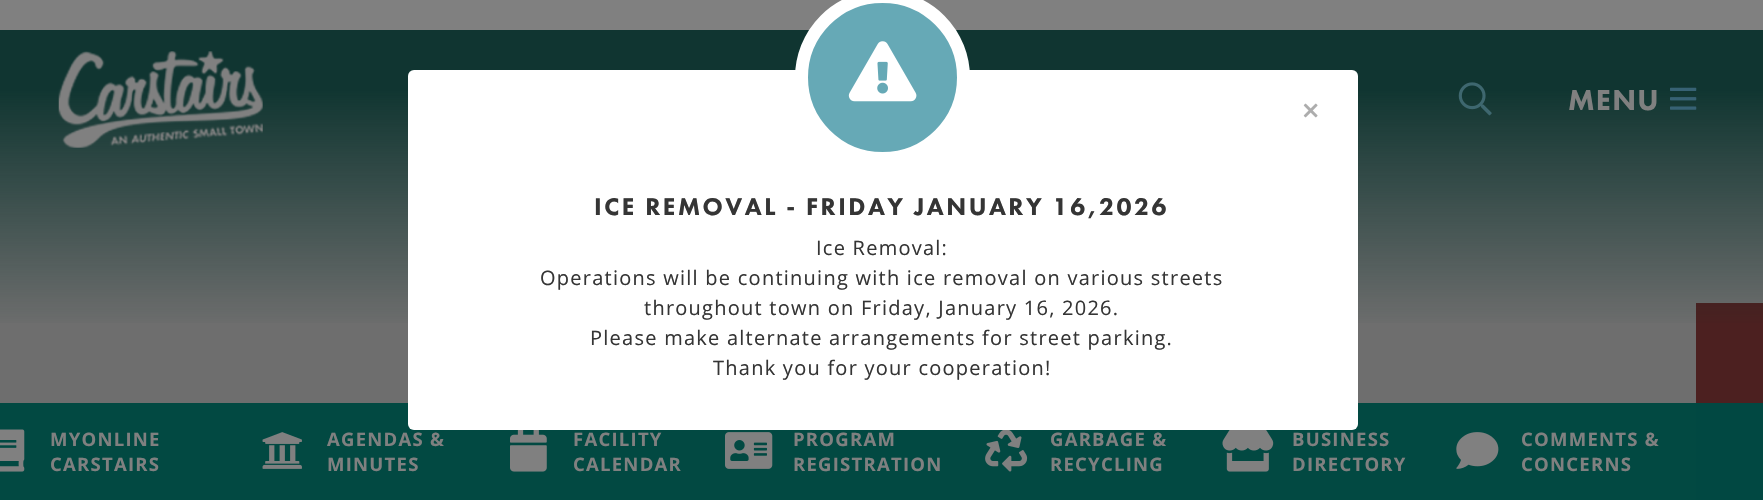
void draw(SkCanvas* canvas) {
    SkPaint paint;
    paint.setAntiAlias(true);
    auto face = [&](const char* family, int weight, float size, bool italic = false) {
        SkFontStyle style(weight, SkFontStyle::kNormal_Width,
            italic ? SkFontStyle::kItalic_Slant : SkFontStyle::kUpright_Slant);
        SkFont result(fontMgr->matchFamilyStyle(family, style), size);
        result.setSubpixel(true);
        return result;
    };
    auto writeSpaced = [&](const char* s, float x, float y, const SkFont& font, const SkPaint& ink, float letter, float word) {
        std::vector<SkGlyphID> glyphs(font.countText(s, strlen(s), SkTextEncoding::kUTF8));
        std::vector<float> xs(glyphs.size());
        font.textToGlyphs(s, strlen(s), SkTextEncoding::kUTF8, glyphs);
        font.getXPos(glyphs, xs, x);
        float extra = 0;
        for (size_t i = 0; i < glyphs.size(); i++) {
            xs[i] += extra;
            extra += letter + word * (glyphs[i] == font.unicharToGlyph(' '));
        }
        canvas->drawTextBlob(SkTextBlob::MakeFromPosHGlyphs(glyphs, xs, y, font), 0, 0, ink);
    };
    auto block = [&](float x, float y, float w, float h, SkColor color) {
        SkPaint ink(SkColor4f::FromColor(color));
        ink.setAntiAlias(true);
        canvas->drawRect(SkRect::MakeXYWH(x, y, w, h), ink);
    };
    auto card = [&](float x, float y, float w, float h, float radius, SkColor color) {
        SkPaint ink(SkColor4f::FromColor(color));
        ink.setAntiAlias(true);
        canvas->drawRoundRect(SkRect::MakeXYWH(x, y, w, h), radius, radius, ink);
    };
    auto paste = [&](const char* path, float x, float y, float w, float h) {
        auto image = SkImages::DeferredFromEncodedData(SkData::MakeFromFileName(path));
        canvas->drawImageRect(image, SkRect::MakeXYWH(x, y, w, h), SkSamplingOptions());
    };
    canvas->clear(SkColorSetRGB(128, 128, 128));
    block(0, 30, 1763, 470, SkColorSetRGB(110, 110, 110));
    block(1696, 303, 67, 197, SkColorSetRGB(76, 32, 32));
    {
        const SkColor colors[] = {SkColorSetARGB(0, 6, 47, 42), SkColorSetARGB(230, 6, 47, 42)};
        const float stops[] = {0, 0.8f};
        const SkPoint ends[] = {{882, 330}, {882, 30}};
        paint.setShader(SkGradientShader::MakeLinear(ends, colors, stops, 2, SkTileMode::kClamp));
        paint.setAlpha(255);
    }
    canvas->drawRect(SkRect::MakeXYWH(0, 30, 1763, 293), paint);
    paste("pic1.png", 58, 51, 205, 97);
    paste("pic2.png", 1458, 82, 34, 34);
    auto kFont1 = face("Futura PT", 900, 30);
    paint.setShader(nullptr);
    paint.setColor(SkColorSetRGB(128, 128, 128));
    writeSpaced("MENU", 1568, 110, kFont1, paint, 1.25f, 0);
    paste("pic3.png", 1670, 87, 27, 23);
    block(0, 403, 1763, 97, SkColorSetARGB(230, 0, 72, 65));
    paste("pic6.png", 0, 429, 25, 43);
    paste("pic7.png", 262, 432, 40, 37);
    paste("pic8.png", 510, 430, 37, 42);
    paste("pic9.png", 725, 432, 48, 37);
    paste("pic10.png", 985, 430, 43, 42);
    paste("pic11.png", 1222, 430, 52, 42);
    paste("pic12.png", 1456, 432, 43, 37);
    block(0, 403, 1763, 97, SkColorSetARGB(230, 0, 72, 65));
    card(408, 70, 950, 360, 6, SK_ColorWHITE);
    paint.setColor(SkColorSetRGB(102, 169, 182));
    canvas->drawCircle(882.5f, 77.5f, 81, paint);
    paint.setStyle(SkPaint::kStroke_Style);
    paint.setStrokeWidth(13);
    paint.setColor(SK_ColorWHITE);
    canvas->drawCircle(882.5f, 77.5f, 81, paint);
    paste("pic4.png", 848, 41, 69, 61);
    paste("pic5.png", 1303, 103, 15, 15);
    auto kFont2 = face("Futura PT", 900, 25);
    paint.setStyle(SkPaint::kFill_Style);
    paint.setColor(SkColorSetRGB(53, 53, 53));
    writeSpaced("ICE REMOVAL - FRIDAY JANUARY 16,2026", 594, 215, kFont2, paint, 2.5f, 0);
    auto kFont3 = face("Open Sans", 400, 20);
    writeSpaced("Ice Removal:", 816, 255, kFont3, paint, 1.25f, 0);
    writeSpaced("Operations will be continuing with ice removal on various streets", 540, 285, kFont3, paint, 1.25f, 0);
    writeSpaced("throughout town on Friday, January 16, 2026.", 644, 315, kFont3, paint, 1.25f, 0);
    writeSpaced("Please make alternate arrangements for street parking.", 590, 345, kFont3, paint, 1.25f, 0);
    writeSpaced("Thank you for your cooperation!", 713, 375, kFont3, paint, 1.25f, 0);
    paste("pic13.png", 0, 429, 25, 43);
    auto kFont4 = face("Open Sans", 700, 18.5f);
    paint.setColor(SkColorSetRGB(128, 128, 128));
    writeSpaced("MYONLINE", 50, 446, kFont4, paint, 1.25f, 0);
    writeSpaced("CARSTAIRS", 50, 471, kFont4, paint, 1.25f, 0);
    paste("pic14.png", 262, 432, 40, 37);
    writeSpaced("AGENDAS &", 327, 446, kFont4, paint, 1.25f, 0);
    writeSpaced("MINUTES", 327, 471, kFont4, paint, 1.25f, 0);
    paste("pic15.png", 510, 430, 37, 42);
    writeSpaced("FACILITY", 573, 446, kFont4, paint, 1.25f, 0);
    writeSpaced("CALENDAR", 573, 471, kFont4, paint, 1.25f, 0);
    paste("pic16.png", 725, 432, 48, 37);
    writeSpaced("PROGRAM", 793, 446, kFont4, paint, 1.25f, 0);
    writeSpaced("REGISTRATION", 793, 471, kFont4, paint, 1.25f, 0);
    paste("pic17.png", 985, 430, 43, 42);
    writeSpaced("GARBAGE &", 1050, 446, kFont4, paint, 1.25f, 0);
    writeSpaced("RECYCLING", 1050, 471, kFont4, paint, 1.25f, 0);
    paste("pic18.png", 1222, 430, 52, 42);
    writeSpaced("BUSINESS", 1292, 446, kFont4, paint, 1.25f, 0);
    writeSpaced("DIRECTORY", 1292, 471, kFont4, paint, 1.25f, 0);
    paste("pic19.png", 1456, 432, 43, 37);
    writeSpaced("COMMENTS &", 1521, 446, kFont4, paint, 1.25f, 0);
    writeSpaced("CONCERNS", 1521, 471, kFont4, paint, 1.25f, 0);
}
